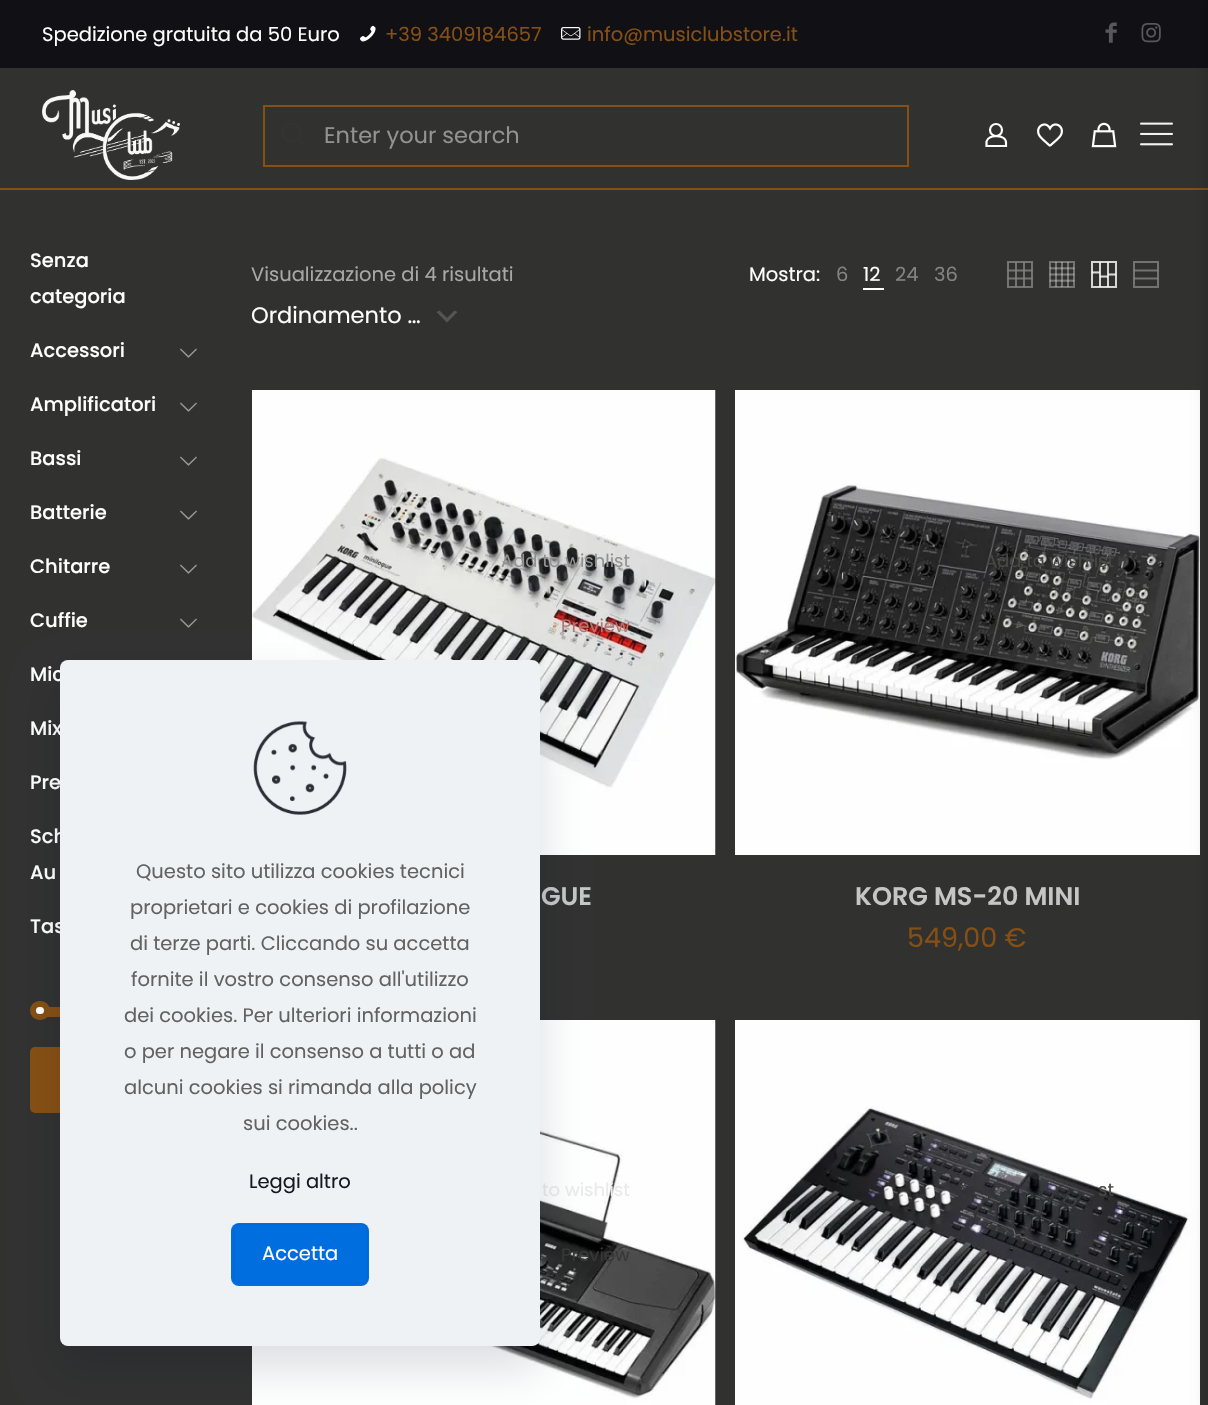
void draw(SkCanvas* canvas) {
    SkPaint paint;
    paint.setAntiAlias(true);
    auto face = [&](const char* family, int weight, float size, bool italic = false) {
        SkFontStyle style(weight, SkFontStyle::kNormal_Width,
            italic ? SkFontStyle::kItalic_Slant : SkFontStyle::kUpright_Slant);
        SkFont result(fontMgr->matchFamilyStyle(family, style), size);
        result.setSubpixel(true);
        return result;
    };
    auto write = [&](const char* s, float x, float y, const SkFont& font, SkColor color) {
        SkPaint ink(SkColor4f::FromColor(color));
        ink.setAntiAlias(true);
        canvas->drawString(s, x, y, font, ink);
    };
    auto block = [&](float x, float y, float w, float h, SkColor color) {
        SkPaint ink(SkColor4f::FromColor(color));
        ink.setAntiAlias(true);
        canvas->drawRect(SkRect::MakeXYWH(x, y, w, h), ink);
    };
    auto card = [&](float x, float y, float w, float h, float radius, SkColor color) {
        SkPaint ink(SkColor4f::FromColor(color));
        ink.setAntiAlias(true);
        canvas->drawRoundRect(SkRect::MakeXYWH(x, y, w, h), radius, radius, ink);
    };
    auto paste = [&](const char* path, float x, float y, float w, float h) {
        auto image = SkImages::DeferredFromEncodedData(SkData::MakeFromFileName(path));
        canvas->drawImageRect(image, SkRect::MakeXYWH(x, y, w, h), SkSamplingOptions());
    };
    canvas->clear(SkColorSetRGB(49, 49, 48));
    block(0, 0, 1208, 68, SkColorSetRGB(16, 16, 21));
    auto kFont1 = face("Poppins", 400, 19.5f);
    write("Spedizione gratuita da 50 Euro", 42, 41, kFont1, SK_ColorWHITE);
    paste("pic1.png", 360, 25, 16, 17);
    write("+39 3409184657", 385, 41, kFont1, SkColorSetRGB(134, 79, 19));
    paste("pic2.png", 561, 27, 20, 13);
    write("info@musiclubstore.it", 587, 41, kFont1, SkColorSetRGB(134, 79, 19));
    paste("pic3.png", 1105, 22, 12, 21);
    paste("pic4.png", 1141, 23, 20, 20);
    block(0, 188, 1208, 2, SkColorSetRGB(134, 79, 19));
    paste("pic5.png", 42, 90, 138, 90);
    paint.setStyle(SkPaint::kStroke_Style);
    paint.setStrokeWidth(2);
    paint.setColor(SkColorSetRGB(134, 79, 19));
    canvas->drawRect(SkRect::MakeXYWH(264, 106, 644, 60), paint);
    paint.setStrokeWidth(2.2f);
    paint.setColor(SkColorSetRGB(51, 51, 51));
    canvas->drawCircle(291.5f, 132.5f, 9, paint);
    canvas->drawPath(SkPathBuilder().moveTo(298, 139).lineTo(305.5f, 146.5f).detach(), paint);
    auto kFont2 = face("Poppins", 400, 22.5f);
    write("Enter your search", 324, 143, kFont2, SkColorSetRGB(146, 146, 146));
    paint.setColor(SK_ColorWHITE);
    canvas->drawCircle(996, 130, 6, paint);
    canvas->drawPath(SkPathBuilder().moveTo(1006, 142.5f).lineTo(1006, 146).lineTo(986.5f, 146).lineTo(986.5f, 141.5f).cubicTo(988.5f, 134, 1006, 134.5f, 1006, 142.5f).close().detach(), paint);
    paste("pic6.png", 1037, 123, 26, 24);
    paste("pic7.png", 1091, 122, 26, 26);
    paste("pic8.png", 1140, 122, 33, 24);
    auto kFont3 = face("Poppins", 500, 19.5f);
    write("Senza", 30, 267, kFont3, SK_ColorWHITE);
    write("categoria", 30, 303, kFont3, SK_ColorWHITE);
    write("Accessori", 30, 357, kFont3, SK_ColorWHITE);
    paste("pic9.png", 180, 348, 17, 10);
    write("Amplificatori", 30, 411, kFont3, SK_ColorWHITE);
    paste("pic9.png", 180, 402, 17, 10);
    write("Bassi", 30, 465, kFont3, SK_ColorWHITE);
    paste("pic9.png", 180, 456, 17, 10);
    write("Batterie", 30, 519, kFont3, SK_ColorWHITE);
    paste("pic9.png", 180, 510, 17, 10);
    write("Chitarre", 30, 573, kFont3, SK_ColorWHITE);
    paste("pic9.png", 180, 564, 17, 10);
    write("Cuffie", 30, 627, kFont3, SK_ColorWHITE);
    paste("pic9.png", 180, 618, 17, 10);
    write("Mic", 30, 681, kFont3, SK_ColorWHITE);
    write("Mix", 30, 735, kFont3, SK_ColorWHITE);
    write("Pre", 30, 789, kFont3, SK_ColorWHITE);
    write("Sch", 30, 843, kFont3, SK_ColorWHITE);
    write("Au", 30, 879, kFont3, SK_ColorWHITE);
    write("Tas", 30, 933, kFont3, SK_ColorWHITE);
    block(47, 1007, 13, 10, SkColorSetRGB(134, 79, 19));
    paint.setStyle(SkPaint::kFill_Style);
    canvas->drawRoundRect(SkRect::MakeXYWH(33, 1004, 14, 13), 6.5f, 6.5f, paint);
    paint.setStyle(SkPaint::kStroke_Style);
    paint.setStrokeWidth(6);
    paint.setColor(SkColorSetRGB(134, 79, 19));
    canvas->drawRoundRect(SkRect::MakeXYWH(33, 1004, 14, 13), 6.5f, 6.5f, paint);
    card(30, 1047, 107, 66, 5, SkColorSetRGB(134, 79, 19));
    write("Visualizzazione di 4 risultati", 251, 281, kFont1, SkColorSetRGB(168, 168, 168));
    write("Mostra:", 749, 281, kFont1, SK_ColorWHITE);
    write("6", 836, 281, kFont1, SkColorSetRGB(131, 131, 131));
    write("12", 863, 281, kFont1, SK_ColorWHITE);
    block(863, 288, 21, 2, SK_ColorWHITE);
    write("24", 895, 281, kFont1, SkColorSetRGB(131, 131, 131));
    write("36", 934, 281, kFont1, SkColorSetRGB(131, 131, 131));
    block(1015, 262, 2, 25, SkColorSetRGB(115, 115, 114));
    block(1023, 262, 2, 25, SkColorSetRGB(115, 115, 114));
    paint.setStrokeWidth(2);
    paint.setColor(SkColorSetARGB(204, 131, 131, 131));
    canvas->drawRect(SkRect::MakeXYWH(1008, 262, 24, 25), paint);
    paint.setStrokeWidth(2.1f);
    canvas->drawPath(SkPathBuilder().moveTo(1007.5f, 270.5f).lineTo(1032.5f, 270.5f).moveTo(1007.5f, 278.5f).lineTo(1032.5f, 278.5f).detach(), paint);
    paste("pic10.png", 1049, 261, 26, 27);
    paste("pic11.png", 1091, 261, 26, 27);
    paint.setStrokeWidth(2);
    paint.setColor(SkColorSetRGB(115, 115, 114));
    canvas->drawRect(SkRect::MakeXYWH(1134, 262, 24, 25), paint);
    paint.setStrokeWidth(2.1f);
    paint.setColor(SkColorSetARGB(204, 131, 131, 131));
    canvas->drawPath(SkPathBuilder().moveTo(1133.5f, 270.5f).lineTo(1158.5f, 270.5f).moveTo(1133.5f, 278.5f).lineTo(1158.5f, 278.5f).detach(), paint);
    paint.setStyle(SkPaint::kFill_Style);
    paint.setColor(SkColorSetRGB(85, 85, 85));
    canvas->drawPath(SkPathBuilder().moveTo(439.5f, 310.5f).lineTo(447, 318).lineTo(454.5f, 310.5f).lineTo(457.5f, 312).lineTo(447, 322.5f).lineTo(436.5f, 312).close().detach(), paint);
    write("Ordinamento …", 251, 323, kFont2, SK_ColorWHITE);
    paste("pic12.png", 252, 390, 464, 465);
    auto kFont4 = face("Poppins", 400, 18);
    write("Add to wishlist", 501, 567, kFont4, SkColorSetRGB(146, 146, 146));
    write("Preview", 561, 632, kFont4, SkColorSetRGB(178, 117, 115));
    auto kFont5 = face("Poppins", 600, 25.5f);
    write("GUE", 541, 905, kFont5, SkColorSetRGB(198, 198, 198));
    paste("pic13.png", 735, 390, 465, 465);
    write("Add to wishlist", 985, 567, kFont4, SkColorSetRGB(71, 71, 70));
    write("KORG MS-20 MINI", 855, 905, kFont5, SkColorSetRGB(198, 198, 198));
    auto kFont6 = face("Poppins", 400, 27);
    write("549,00 €", 907, 947, kFont6, SkColorSetRGB(134, 79, 19));
    paste("pic14.png", 252, 1020, 464, 385);
    write("to wishlist", 542, 1196, kFont4, SkColorSetRGB(234, 234, 234));
    write("Preview", 561, 1261, kFont4, SkColorSetRGB(55, 55, 55));
    paste("pic15.png", 735, 1020, 465, 385);
    write("st", 1098, 1196, kFont4, SkColorSetRGB(71, 71, 70));
    paint.setColor(SkColorSetARGB(51, 0, 0, 0));
    paint.setMaskFilter(SkMaskFilter::MakeBlur(kNormal_SkBlurStyle, 7.5f));
    canvas->drawRect(SkRect::MakeXYWH(1208, -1, 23, 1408), paint);
    paint.setMaskFilter(nullptr);
    paint.setColor(SkColorSetARGB(33, 1, 7, 39));
    paint.setMaskFilter(SkMaskFilter::MakeBlur(kNormal_SkBlurStyle, 22.5f));
    canvas->drawRoundRect(SkRect::MakeXYWH(60, 683, 480, 685), 8, 8, paint);
    paint.setMaskFilter(nullptr);
    card(60, 660, 480, 686, 8, SkColorSetRGB(238, 242, 245));
    paste("pic16.png", 253, 721, 94, 94);
    write("Questo sito utilizza cookies tecnici", 136, 878, kFont1, SkColorSetRGB(98, 98, 98));
    write("proprietari e cookies di profilazione", 130, 914, kFont1, SkColorSetRGB(98, 98, 98));
    write("di terze parti. Cliccando su accetta", 130, 950, kFont1, SkColorSetRGB(98, 98, 98));
    write("fornite il vostro consenso all'utilizzo", 131, 986, kFont1, SkColorSetRGB(98, 98, 98));
    write("dei cookies. Per ulteriori informazioni", 124, 1022, kFont1, SkColorSetRGB(98, 98, 98));
    write("o per negare il consenso a tutti o ad", 124, 1058, kFont1, SkColorSetRGB(98, 98, 98));
    write("alcuni cookies si rimanda alla policy", 124, 1094, kFont1, SkColorSetRGB(98, 98, 98));
    write("sui cookies..", 243, 1130, kFont1, SkColorSetRGB(98, 98, 98));
    write("Leggi altro", 249, 1188, kFont1, SkColorSetRGB(22, 25, 34));
    card(231, 1223, 138, 63, 8, SkColorSetRGB(0, 110, 223));
    paint.setStyle(SkPaint::kStroke_Style);
    paint.setStrokeWidth(2);
    paint.setColor(SkColorSetRGB(0, 107, 216));
    canvas->drawRoundRect(SkRect::MakeXYWH(234, 1225, 133, 58), 5, 5, paint);
    write("Accetta", 262, 1260, kFont1, SK_ColorWHITE);
}
